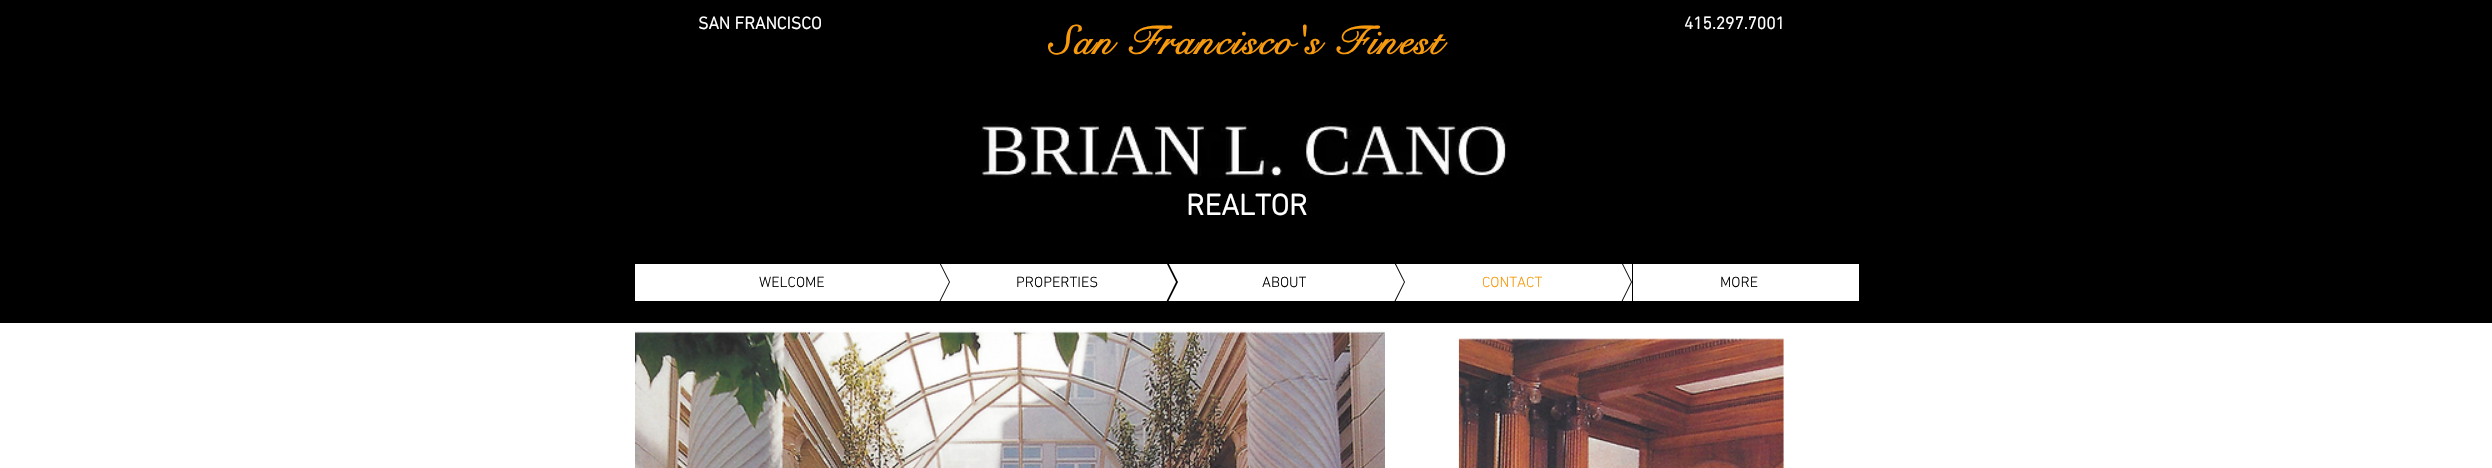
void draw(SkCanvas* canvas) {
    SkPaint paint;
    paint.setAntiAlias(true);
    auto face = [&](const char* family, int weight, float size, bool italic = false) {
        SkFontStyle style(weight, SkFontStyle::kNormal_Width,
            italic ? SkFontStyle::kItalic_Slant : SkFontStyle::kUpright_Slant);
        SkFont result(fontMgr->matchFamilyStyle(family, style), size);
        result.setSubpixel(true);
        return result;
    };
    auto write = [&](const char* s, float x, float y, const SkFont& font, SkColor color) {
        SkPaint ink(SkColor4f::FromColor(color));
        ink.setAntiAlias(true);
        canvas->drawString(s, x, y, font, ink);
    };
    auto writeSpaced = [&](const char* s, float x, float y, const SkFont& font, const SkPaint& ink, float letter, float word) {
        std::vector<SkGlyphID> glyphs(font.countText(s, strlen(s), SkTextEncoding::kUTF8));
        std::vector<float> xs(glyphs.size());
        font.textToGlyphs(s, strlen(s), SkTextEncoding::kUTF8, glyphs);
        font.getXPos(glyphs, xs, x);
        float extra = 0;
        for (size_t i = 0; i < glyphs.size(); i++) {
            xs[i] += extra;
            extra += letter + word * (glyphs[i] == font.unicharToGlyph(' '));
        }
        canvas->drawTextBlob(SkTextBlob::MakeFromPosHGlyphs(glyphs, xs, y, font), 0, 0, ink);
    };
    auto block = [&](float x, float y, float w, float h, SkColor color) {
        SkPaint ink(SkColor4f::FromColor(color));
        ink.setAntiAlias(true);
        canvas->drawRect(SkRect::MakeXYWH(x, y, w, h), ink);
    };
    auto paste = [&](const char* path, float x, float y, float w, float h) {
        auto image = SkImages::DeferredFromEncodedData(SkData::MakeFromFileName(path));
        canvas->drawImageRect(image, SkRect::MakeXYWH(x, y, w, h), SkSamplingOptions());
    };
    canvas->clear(SK_ColorWHITE);
    block(0, 0, 2492, 323, SK_ColorBLACK);
    auto kFont1 = face("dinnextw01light", 700, 17.5f);
    write("SAN FRANCISCO", 698, 29, kFont1, SK_ColorWHITE);
    write("415.297.7001", 1684, 29, kFont1, SK_ColorWHITE);
    auto kFont2 = face("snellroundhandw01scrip", 700, 40);
    paint.setColor(SkColorSetRGB(247, 154, 14));
    writeSpaced("San Francisco's Finest", 1049, 54, kFont2, paint, 2.4f, 0);
    paste("pic1.png", 981, 122, 525, 56);
    auto kFont3 = face("dinnextw01light", 700, 30);
    write("REALTOR", 1186, 215, kFont3, SK_ColorWHITE);
    block(635, 264, 226, 37, SK_ColorWHITE);
    canvas->save();
    canvas->clipRect(SkRect::MakeXYWH(861, 264, 88, 37));
    paint.setColor(SK_ColorWHITE);
    canvas->drawPath(SkPathBuilder().moveTo(949, 282).lineTo(861, 282).lineTo(861, 108).close().detach(), paint);
    canvas->drawPath(SkPathBuilder().moveTo(861, 282).lineTo(949, 282).lineTo(861, 458).close().detach(), paint);
    canvas->restore();
    auto kFont4 = face("dinnextw01light", 300, 15);
    write("WELCOME", 759, 287, kFont4, SK_ColorBLACK);
    canvas->save();
    canvas->clipRect(SkRect::MakeXYWH(863, 264, 87, 37));
    canvas->drawPath(SkPathBuilder().moveTo(862, 108).lineTo(950, 108).lineTo(950, 282).close().moveTo(950, 458).lineTo(862, 458).lineTo(950, 282).close().detach(), paint);
    canvas->restore();
    block(950, 264, 139, 37, SK_ColorWHITE);
    canvas->save();
    canvas->clipRect(SkRect::MakeXYWH(1089, 264, 87, 37));
    canvas->drawPath(SkPathBuilder().moveTo(1176, 282).lineTo(1089, 282).lineTo(1089, 108).close().detach(), paint);
    canvas->drawPath(SkPathBuilder().moveTo(1089, 282).lineTo(1176, 282).lineTo(1089, 458).close().detach(), paint);
    canvas->restore();
    write("PROPERTIES", 1016, 287, kFont4, SK_ColorBLACK);
    canvas->save();
    canvas->clipRect(SkRect::MakeXYWH(1090, 264, 88, 37));
    canvas->drawPath(SkPathBuilder().moveTo(1090, 108).lineTo(1178, 108).lineTo(1178, 282).close().moveTo(1178, 458).lineTo(1090, 458).lineTo(1178, 282).close().detach(), paint);
    canvas->restore();
    block(1178, 264, 138, 37, SK_ColorWHITE);
    canvas->save();
    canvas->clipRect(SkRect::MakeXYWH(1316, 264, 88, 37));
    canvas->drawPath(SkPathBuilder().moveTo(1404, 282).lineTo(1316, 282).lineTo(1316, 108).close().detach(), paint);
    canvas->drawPath(SkPathBuilder().moveTo(1316, 282).lineTo(1404, 282).lineTo(1316, 458).close().detach(), paint);
    canvas->restore();
    write("ABOUT", 1262, 287, kFont4, SK_ColorBLACK);
    canvas->save();
    canvas->clipRect(SkRect::MakeXYWH(1318, 264, 87, 37));
    canvas->drawPath(SkPathBuilder().moveTo(1318, 108).lineTo(1405, 108).lineTo(1405, 282).close().moveTo(1405, 458).lineTo(1318, 458).lineTo(1405, 282).close().detach(), paint);
    canvas->restore();
    block(1405, 264, 139, 37, SK_ColorWHITE);
    canvas->save();
    canvas->clipRect(SkRect::MakeXYWH(1544, 264, 87, 37));
    canvas->drawPath(SkPathBuilder().moveTo(1631, 282).lineTo(1544, 282).lineTo(1544, 108).close().detach(), paint);
    canvas->drawPath(SkPathBuilder().moveTo(1544, 282).lineTo(1631, 282).lineTo(1544, 458).close().detach(), paint);
    canvas->restore();
    write("CONTACT", 1482, 287, kFont4, SkColorSetRGB(247, 154, 14));
    canvas->save();
    canvas->clipRect(SkRect::MakeXYWH(1545, 264, 88, 37));
    canvas->drawPath(SkPathBuilder().moveTo(1545, 108).lineTo(1632, 108).lineTo(1632, 282).close().moveTo(1632, 458).lineTo(1545, 458).lineTo(1632, 282).close().detach(), paint);
    canvas->restore();
    block(1633, 264, 226, 37, SK_ColorWHITE);
    write("MORE", 1720, 287, kFont4, SK_ColorBLACK);
    paste("pic2.png", 635, 331, 750, 137);
    paste("pic3.png", 1458, 338, 326, 130);
}
